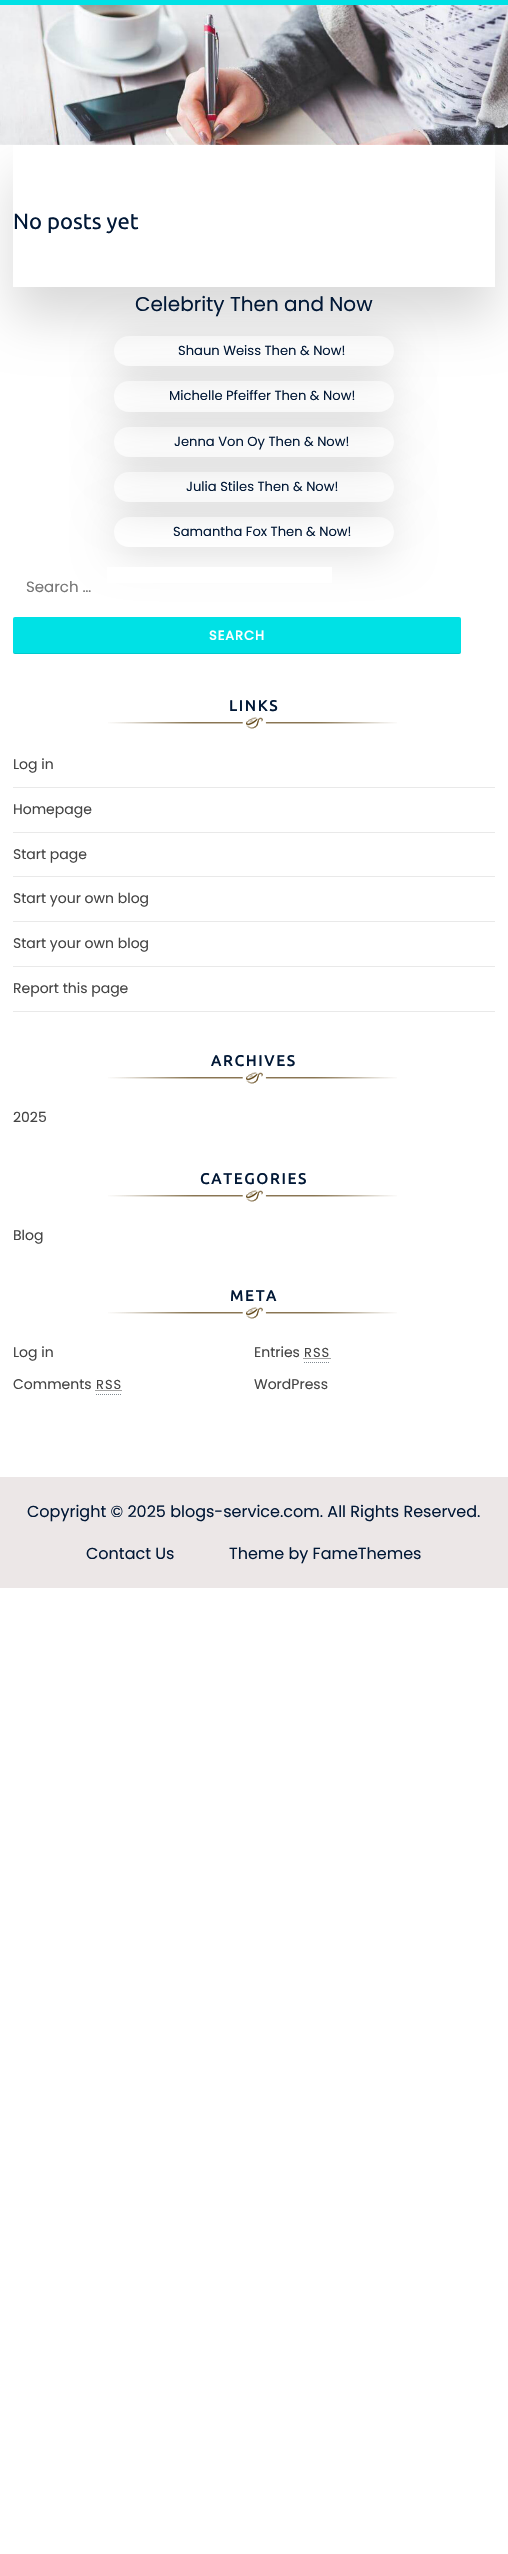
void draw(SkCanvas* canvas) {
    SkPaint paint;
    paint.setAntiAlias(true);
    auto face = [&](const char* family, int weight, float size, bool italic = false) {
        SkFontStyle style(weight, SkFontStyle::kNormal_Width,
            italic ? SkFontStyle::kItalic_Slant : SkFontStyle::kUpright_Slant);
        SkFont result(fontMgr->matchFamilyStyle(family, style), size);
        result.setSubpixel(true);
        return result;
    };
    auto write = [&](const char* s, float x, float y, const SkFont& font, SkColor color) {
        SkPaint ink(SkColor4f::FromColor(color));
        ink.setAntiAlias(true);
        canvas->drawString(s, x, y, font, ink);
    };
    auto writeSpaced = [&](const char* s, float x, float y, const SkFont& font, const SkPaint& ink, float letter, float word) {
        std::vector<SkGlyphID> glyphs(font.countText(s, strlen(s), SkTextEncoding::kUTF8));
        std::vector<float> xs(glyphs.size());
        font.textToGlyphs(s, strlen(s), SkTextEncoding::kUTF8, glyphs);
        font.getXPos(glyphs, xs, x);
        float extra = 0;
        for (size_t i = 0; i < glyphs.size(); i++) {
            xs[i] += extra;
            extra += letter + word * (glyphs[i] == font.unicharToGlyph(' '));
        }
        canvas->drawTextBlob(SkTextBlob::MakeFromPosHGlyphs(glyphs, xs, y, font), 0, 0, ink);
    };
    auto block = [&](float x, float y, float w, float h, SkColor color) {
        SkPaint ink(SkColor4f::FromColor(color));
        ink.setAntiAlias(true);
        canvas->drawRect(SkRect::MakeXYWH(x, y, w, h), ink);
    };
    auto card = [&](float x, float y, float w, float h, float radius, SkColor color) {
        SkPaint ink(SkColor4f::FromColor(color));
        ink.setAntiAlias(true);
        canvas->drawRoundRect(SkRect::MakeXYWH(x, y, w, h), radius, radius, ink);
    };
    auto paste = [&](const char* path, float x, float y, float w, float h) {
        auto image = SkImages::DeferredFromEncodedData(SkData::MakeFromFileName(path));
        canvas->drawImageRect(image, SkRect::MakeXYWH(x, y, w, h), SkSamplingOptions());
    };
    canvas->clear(SK_ColorWHITE);
    paste("pic1.png", 0, 5, 508, 140);
    block(0, 0, 508, 5, SkColorSetRGB(0, 225, 229));
    canvas->save();
    canvas->clipPath(SkPathBuilder(SkPathFillType::kEvenOdd).moveTo(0, 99).lineTo(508, 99).lineTo(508, 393).lineTo(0, 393).close().moveTo(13, 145).lineTo(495, 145).lineTo(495, 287).lineTo(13, 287).close().detach(), true);
    paint.setColor(SkColorSetARGB(38, 1, 1, 1));
    paint.setMaskFilter(SkMaskFilter::MakeBlur(kNormal_SkBlurStyle, 25));
    canvas->drawRect(SkRect::MakeXYWH(13, 175, 482, 142), paint);
    paint.setMaskFilter(nullptr);
    canvas->restore();
    auto kFont1 = face("Ubuntu", 400, 22);
    write("No posts yet", 13, 229, kFont1, SkColorSetRGB(1, 24, 54));
    canvas->save();
    canvas->clipPath(SkPathBuilder(SkPathFillType::kEvenOdd).moveTo(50, 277).lineTo(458, 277).lineTo(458, 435).lineTo(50, 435).close().moveTo(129, 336).lineTo(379, 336).cubicTo(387.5f, 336, 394, 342.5f, 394, 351).cubicTo(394, 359.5f, 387.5f, 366, 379, 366).lineTo(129, 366).cubicTo(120.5f, 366, 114, 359.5f, 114, 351).cubicTo(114, 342.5f, 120.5f, 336, 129, 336).close().detach(), true);
    paint.setMaskFilter(SkMaskFilter::MakeBlur(kNormal_SkBlurStyle, 21));
    canvas->drawRoundRect(SkRect::MakeXYWH(114, 341, 280, 30), 15, 15, paint);
    paint.setMaskFilter(nullptr);
    canvas->restore();
    auto kFont2 = face("Poppins", 400, 20);
    write("Celebrity Then and Now", 135, 311, kFont2, SkColorSetRGB(1, 24, 54));
    canvas->save();
    canvas->clipPath(SkPathBuilder(SkPathFillType::kEvenOdd).moveTo(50, 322).lineTo(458, 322).lineTo(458, 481).lineTo(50, 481).close().moveTo(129, 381).lineTo(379, 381).cubicTo(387.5f, 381, 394, 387.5f, 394, 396).lineTo(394, 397).cubicTo(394, 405.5f, 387.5f, 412, 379, 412).lineTo(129, 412).cubicTo(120.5f, 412, 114, 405.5f, 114, 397).lineTo(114, 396).cubicTo(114, 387.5f, 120.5f, 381, 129, 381).close().detach(), true);
    paint.setMaskFilter(SkMaskFilter::MakeBlur(kNormal_SkBlurStyle, 21));
    canvas->drawRoundRect(SkRect::MakeXYWH(114, 386, 280, 31), 15, 15, paint);
    paint.setMaskFilter(nullptr);
    canvas->restore();
    auto kFont3 = face("Poppins", 400, 13.1f);
    write("Shaun Weiss Then & Now!", 178, 355, kFont3, SkColorSetRGB(1, 24, 54));
    canvas->save();
    canvas->clipPath(SkPathBuilder(SkPathFillType::kEvenOdd).moveTo(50, 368).lineTo(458, 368).lineTo(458, 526).lineTo(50, 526).close().moveTo(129, 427).lineTo(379, 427).cubicTo(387.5f, 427, 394, 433.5f, 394, 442).cubicTo(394, 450.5f, 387.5f, 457, 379, 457).lineTo(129, 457).cubicTo(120.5f, 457, 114, 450.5f, 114, 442).cubicTo(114, 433.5f, 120.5f, 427, 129, 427).close().detach(), true);
    paint.setMaskFilter(SkMaskFilter::MakeBlur(kNormal_SkBlurStyle, 21));
    canvas->drawRoundRect(SkRect::MakeXYWH(114, 432, 280, 30), 15, 15, paint);
    paint.setMaskFilter(nullptr);
    canvas->restore();
    write("Michelle Pfeiffer Then & Now!", 169, 400, kFont3, SkColorSetRGB(1, 24, 54));
    canvas->save();
    canvas->clipPath(SkPathBuilder(SkPathFillType::kEvenOdd).moveTo(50, 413).lineTo(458, 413).lineTo(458, 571).lineTo(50, 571).close().moveTo(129, 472).lineTo(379, 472).cubicTo(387.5f, 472, 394, 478.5f, 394, 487).cubicTo(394, 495.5f, 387.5f, 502, 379, 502).lineTo(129, 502).cubicTo(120.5f, 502, 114, 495.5f, 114, 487).cubicTo(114, 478.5f, 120.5f, 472, 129, 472).close().detach(), true);
    paint.setMaskFilter(SkMaskFilter::MakeBlur(kNormal_SkBlurStyle, 21));
    canvas->drawRoundRect(SkRect::MakeXYWH(114, 477, 280, 30), 15, 15, paint);
    paint.setMaskFilter(nullptr);
    canvas->restore();
    write("Jenna Von Oy Then & Now!", 174, 446, kFont3, SkColorSetRGB(1, 24, 54));
    canvas->save();
    canvas->clipPath(SkPathBuilder(SkPathFillType::kEvenOdd).moveTo(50, 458).lineTo(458, 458).lineTo(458, 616).lineTo(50, 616).close().moveTo(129, 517).lineTo(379, 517).cubicTo(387.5f, 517, 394, 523.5f, 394, 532).cubicTo(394, 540.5f, 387.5f, 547, 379, 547).lineTo(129, 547).cubicTo(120.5f, 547, 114, 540.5f, 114, 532).cubicTo(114, 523.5f, 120.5f, 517, 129, 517).close().detach(), true);
    paint.setMaskFilter(SkMaskFilter::MakeBlur(kNormal_SkBlurStyle, 21));
    canvas->drawRoundRect(SkRect::MakeXYWH(114, 522, 280, 30), 15, 15, paint);
    paint.setMaskFilter(nullptr);
    canvas->restore();
    write("Julia Stiles Then & Now!", 186, 491, kFont3, SkColorSetRGB(1, 24, 54));
    write("Samantha Fox Then & Now!", 173, 536, kFont3, SkColorSetRGB(1, 24, 54));
    block(107, 567, 225, 16, SK_ColorWHITE);
    auto kFont4 = face("Poppins", 400, 15);
    write("Search …", 26, 592, kFont4, SkColorSetRGB(117, 117, 117));
    card(13, 617, 448, 37, 2, SkColorSetRGB(0, 225, 229));
    paint.setColor(SkColorSetARGB(26, 0, 0, 0));
    canvas->drawPath(SkPathBuilder().moveTo(13, 651).cubicTo(13, 652, 13, 654, 15, 654).lineTo(459, 654).cubicTo(461, 654, 461, 652, 461, 651).cubicTo(461, 652, 460, 653, 459, 653).lineTo(15, 653).cubicTo(14, 653, 13, 652, 13, 651).close().detach(), paint);
    auto kFont5 = face("Poppins", 700, 13);
    paint.setColor(SK_ColorWHITE);
    writeSpaced("SEARCH", 209, 640, kFont5, paint, 1, 0);
    paste("pic2.png", 108, 717, 289, 12);
    auto kFont6 = face("Ubuntu", 700, 15);
    paint.setColor(SkColorSetRGB(1, 24, 54));
    writeSpaced("LINKS", 229, 711, kFont6, paint, 2, 0);
    block(13, 787, 482, 1, SkColorSetRGB(233, 233, 233));
    auto kFont7 = face("Poppins", 400, 14);
    write("Log in", 13, 769, kFont7, SkColorSetRGB(68, 68, 68));
    block(13, 832, 482, 1, SkColorSetRGB(233, 233, 233));
    write("Homepage", 13, 814, kFont7, SkColorSetRGB(68, 68, 68));
    block(13, 876, 482, 1, SkColorSetRGB(233, 233, 233));
    write("Start page", 13, 859, kFont7, SkColorSetRGB(68, 68, 68));
    block(13, 921, 482, 1, SkColorSetRGB(233, 233, 233));
    write("Start your own blog", 13, 903, kFont7, SkColorSetRGB(68, 68, 68));
    block(13, 966, 482, 1, SkColorSetRGB(233, 233, 233));
    write("Start your own blog", 13, 948, kFont7, SkColorSetRGB(68, 68, 68));
    block(13, 1011, 482, 1, SkColorSetRGB(233, 233, 233));
    write("Report this page", 13, 993, kFont7, SkColorSetRGB(68, 68, 68));
    paste("pic2.png", 108, 1072, 289, 12);
    writeSpaced("ARCHIVES", 211, 1066, kFont6, paint, 2, 0);
    write("2025", 13, 1122, kFont7, SkColorSetRGB(68, 68, 68));
    paste("pic2.png", 108, 1190, 289, 12);
    writeSpaced("CATEGORIES", 200, 1184, kFont6, paint, 2, 0);
    write("Blog", 13, 1240, kFont7, SkColorSetRGB(68, 68, 68));
    paste("pic2.png", 108, 1307, 289, 12);
    writeSpaced("META", 230, 1301, kFont6, paint, 2, 0);
    write("Log in", 13, 1357, kFont7, SkColorSetRGB(68, 68, 68));
    write("Entries", 254, 1357, kFont7, SkColorSetRGB(68, 68, 68));
    auto kFont8 = face("Poppins", 400, 13);
    paint.setColor(SkColorSetRGB(68, 68, 68));
    writeSpaced("RSS", 304, 1357, kFont8, paint, 1, 0);
    paint.setStyle(SkPaint::kStroke_Style);
    paint.setStrokeWidth(1);
    paint.setColor(SkColorSetRGB(129, 138, 145));
    paint.setPathEffect(SkDashPathEffect::Make({{1, 1}}, 0));
    canvas->drawPath(SkPathBuilder().moveTo(304, 1362.5f).lineTo(330, 1362.5f).detach(), paint);
    paint.setPathEffect(nullptr);
    paint.setColor(SkColorSetRGB(68, 68, 68));
    paint.setPathEffect(SkDashPathEffect::Make({{1, 1}}, 0));
    canvas->drawPath(SkPathBuilder().moveTo(303.5f, 1358.5f).lineTo(330.5f, 1358.5f).detach(), paint);
    paint.setPathEffect(nullptr);
    write("Comments", 13, 1389, kFont7, SkColorSetRGB(68, 68, 68));
    paint.setStyle(SkPaint::kFill_Style);
    writeSpaced("RSS", 96, 1389, kFont8, paint, 1, 0);
    paint.setStyle(SkPaint::kStroke_Style);
    paint.setColor(SkColorSetRGB(129, 138, 145));
    paint.setPathEffect(SkDashPathEffect::Make({{1, 1}}, 0));
    canvas->drawPath(SkPathBuilder().moveTo(96, 1394.5f).lineTo(122, 1394.5f).detach(), paint);
    paint.setPathEffect(nullptr);
    paint.setColor(SkColorSetRGB(68, 68, 68));
    paint.setPathEffect(SkDashPathEffect::Make({{1, 1}}, 0));
    canvas->drawPath(SkPathBuilder().moveTo(95.5f, 1390.5f).lineTo(122, 1390.5f).detach(), paint);
    paint.setPathEffect(nullptr);
    write("WordPress", 254, 1389, kFont7, SkColorSetRGB(68, 68, 68));
    block(0, 1477, 508, 111, SkColorSetRGB(236, 231, 231));
    auto kFont9 = face("Poppins", 400, 16);
    write("Copyright © 2025 blogs-service.com. All Rights Reserved.", 27, 1517, kFont9, SkColorSetRGB(1, 24, 54));
    write("Contact Us", 86, 1559, kFont9, SkColorSetRGB(1, 24, 54));
    write("Theme by FameThemes", 229, 1559, kFont9, SkColorSetRGB(1, 24, 54));
}
